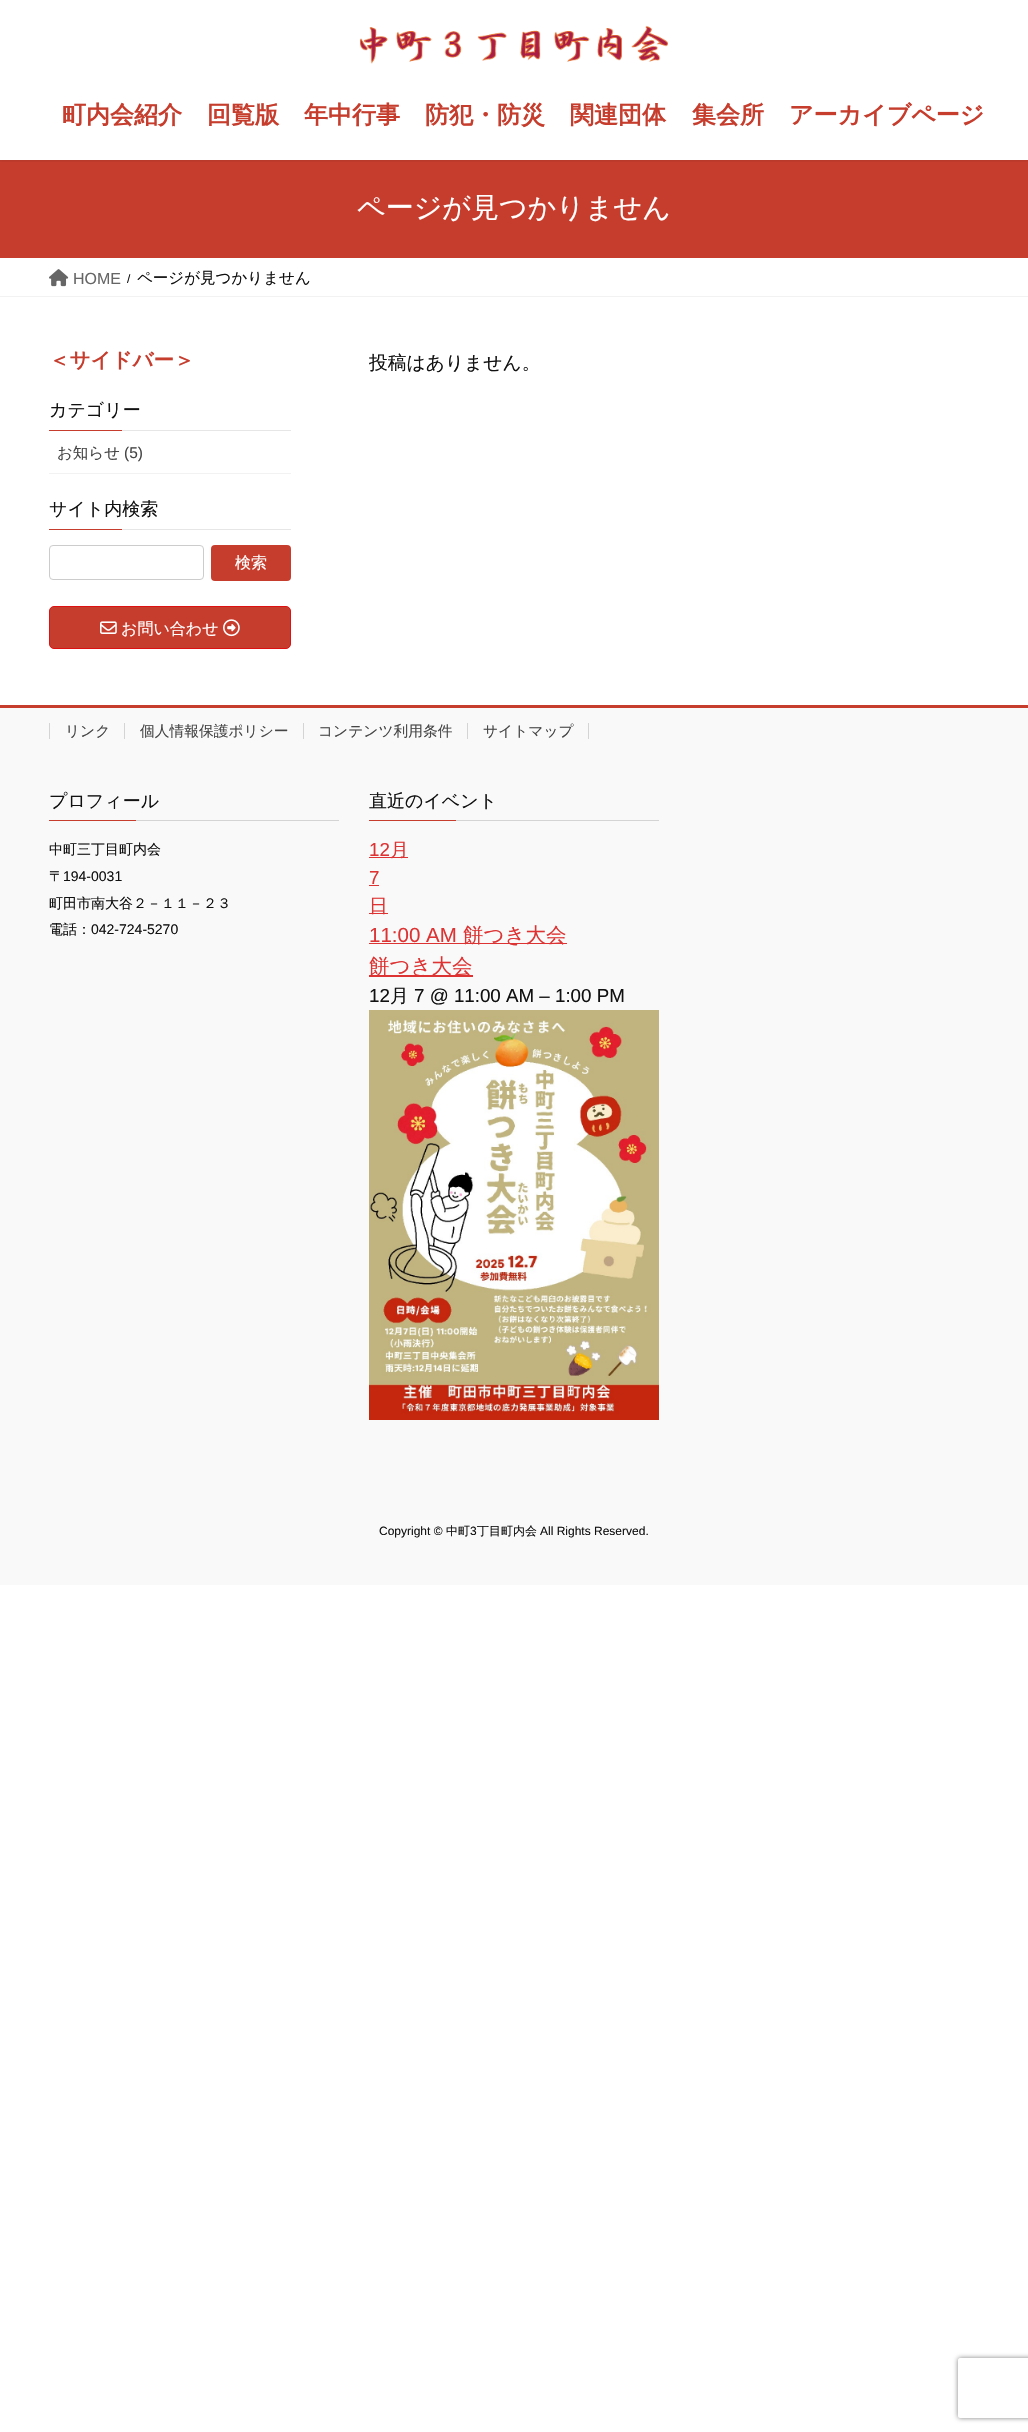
void draw(SkCanvas* canvas) {
    SkPaint paint;
    paint.setAntiAlias(true);
    auto face = [&](const char* family, int weight, float size, bool italic = false) {
        SkFontStyle style(weight, SkFontStyle::kNormal_Width,
            italic ? SkFontStyle::kItalic_Slant : SkFontStyle::kUpright_Slant);
        SkFont result(fontMgr->matchFamilyStyle(family, style), size);
        result.setSubpixel(true);
        return result;
    };
    auto write = [&](const char* s, float x, float y, const SkFont& font, SkColor color) {
        SkPaint ink(SkColor4f::FromColor(color));
        ink.setAntiAlias(true);
        canvas->drawString(s, x, y, font, ink);
    };
    auto block = [&](float x, float y, float w, float h, SkColor color) {
        SkPaint ink(SkColor4f::FromColor(color));
        ink.setAntiAlias(true);
        canvas->drawRect(SkRect::MakeXYWH(x, y, w, h), ink);
    };
    auto card = [&](float x, float y, float w, float h, float radius, SkColor color) {
        SkPaint ink(SkColor4f::FromColor(color));
        ink.setAntiAlias(true);
        canvas->drawRoundRect(SkRect::MakeXYWH(x, y, w, h), radius, radius, ink);
    };
    auto paste = [&](const char* path, float x, float y, float w, float h) {
        auto image = SkImages::DeferredFromEncodedData(SkData::MakeFromFileName(path));
        canvas->drawImageRect(image, SkRect::MakeXYWH(x, y, w, h), SkSamplingOptions());
    };
    canvas->clear(SK_ColorWHITE);
    block(0, 160, 1028, 98, SkColorSetRGB(198, 61, 45));
    canvas->save();
    canvas->clipRect(SkRect::MakeXYWH(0, 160, 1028, 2));
    paint.setColor(SkColorSetARGB(26, 0, 0, 0));
    paint.setMaskFilter(SkMaskFilter::MakeBlur(kNormal_SkBlurStyle, 1.5f));
    canvas->drawRect(SkRect::MakeXYWH(0, 1, 1028, 160), paint);
    paint.setMaskFilter(nullptr);
    canvas->restore();
    paste("pic1.png", 360, 25, 308, 39);
    auto kFont1 = face("WenQuanYi Zen Hei", 700, 24);
    write("町内会紹介", 62, 123, kFont1, SkColorSetRGB(198, 61, 45));
    write("回覧版", 207, 123, kFont1, SkColorSetRGB(198, 61, 45));
    write("年中行事", 304, 123, kFont1, SkColorSetRGB(198, 61, 45));
    write("防犯・防災", 425, 123, kFont1, SkColorSetRGB(198, 61, 45));
    write("関連団体", 570, 123, kFont1, SkColorSetRGB(198, 61, 45));
    write("集会所", 692, 123, kFont1, SkColorSetRGB(198, 61, 45));
    write("アーカイブページ", 789, 123, kFont1, SkColorSetRGB(198, 61, 45));
    auto kFont2 = face("WenQuanYi Zen Hei", 500, 28);
    write("ページが見つかりません", 357, 217, kFont2, SK_ColorWHITE);
    block(0, 296, 1028, 1, SkColorSetRGB(242, 242, 242));
    paste("pic2.png", 49, 269, 20, 18);
    auto kFont3 = face("Liberation Sans", 400, 16);
    write("HOME", 73, 284, kFont3, SkColorSetRGB(102, 102, 102));
    auto kFont4 = face("Liberation Sans", 400, 12);
    write("/", 127, 283, kFont4, SkColorSetRGB(17, 17, 17));
    auto kFont5 = face("WenQuanYi Zen Hei", 500, 15.5f);
    write("ページが見つかりません", 137, 283, kFont5, SkColorSetRGB(17, 17, 17));
    auto kFont6 = face("WenQuanYi Zen Hei", 700, 20.5f);
    write("＜サイドバー＞", 49, 367, kFont6, SkColorSetRGB(198, 61, 45));
    block(122, 430, 169, 1, SkColorSetRGB(230, 230, 230));
    auto kFont7 = face("WenQuanYi Zen Hei", 500, 18);
    write("カテゴリー", 49, 416, kFont7, SkColorSetRGB(17, 17, 17));
    block(49, 430, 73, 1, SkColorSetRGB(198, 61, 45));
    block(49, 473, 242, 1, SkColorSetRGB(242, 242, 242));
    write("お知らせ", 57, 458, kFont5, SkColorSetRGB(70, 70, 70));
    auto kFont8 = face("Liberation Sans", 400, 15.5f);
    write("(5)", 124, 458, kFont8, SkColorSetRGB(70, 70, 70));
    block(122, 529, 169, 1, SkColorSetRGB(230, 230, 230));
    write("サイト内検索", 49, 515, kFont7, SkColorSetRGB(17, 17, 17));
    block(49, 529, 73, 1, SkColorSetRGB(198, 61, 45));
    paint.setStyle(SkPaint::kStroke_Style);
    paint.setStrokeWidth(1);
    paint.setColor(SkColorSetRGB(204, 204, 204));
    canvas->drawRoundRect(SkRect::MakeXYWH(49.5f, 545.5f, 154, 34), 3.5f, 3.5f, paint);
    card(211, 545, 80, 36, 4, SkColorSetRGB(198, 61, 45));
    auto kFont9 = face("WenQuanYi Zen Hei", 500, 16);
    write("検索", 235, 568, kFont9, SK_ColorWHITE);
    paint.setStyle(SkPaint::kFill_Style);
    paint.setColor(SkColorSetRGB(198, 61, 45));
    canvas->drawRoundRect(SkRect::MakeXYWH(49.5f, 606.5f, 241, 42), 4.5f, 4.5f, paint);
    paint.setStyle(SkPaint::kStroke_Style);
    paint.setColor(SkColorSetRGB(221, 17, 17));
    canvas->drawRoundRect(SkRect::MakeXYWH(49.5f, 606.5f, 241, 42), 4.5f, 4.5f, paint);
    paste("pic3.png", 100, 621, 17, 13);
    write("お問い合わせ", 121, 634, kFont9, SK_ColorWHITE);
    paste("pic4.png", 223, 619, 17, 18);
    auto kFont10 = face("WenQuanYi Zen Hei", 500, 18.75f);
    write("投稿はありません。", 369, 369, kFont10, SkColorSetRGB(17, 17, 17));
    block(0, 708, 1028, 877, SkColorSetRGB(249, 249, 249));
    block(0, 705, 1028, 3, SkColorSetRGB(198, 61, 45));
    auto kFont11 = face("WenQuanYi Zen Hei", 500, 14.75f);
    write("リンク", 65, 736, kFont11, SkColorSetRGB(70, 70, 70));
    block(49, 723, 1, 16, SkColorSetRGB(212, 212, 212));
    write("個人情報保護ポリシー", 140, 736, kFont11, SkColorSetRGB(70, 70, 70));
    block(124, 723, 1, 16, SkColorSetRGB(212, 212, 212));
    write("コンテンツ利用条件", 318, 736, kFont11, SkColorSetRGB(70, 70, 70));
    block(303, 723, 1, 16, SkColorSetRGB(212, 212, 212));
    write("サイトマップ", 483, 736, kFont11, SkColorSetRGB(70, 70, 70));
    block(588, 723, 1, 16, SkColorSetRGB(212, 212, 212));
    block(467, 723, 1, 16, SkColorSetRGB(212, 212, 212));
    block(136, 820, 203, 1, SkColorSetRGB(212, 212, 212));
    write("プロフィール", 49, 807, kFont7, SkColorSetRGB(17, 17, 17));
    block(49, 820, 87, 1, SkColorSetRGB(198, 61, 45));
    auto kFont12 = face("WenQuanYi Zen Hei", 500, 14);
    write("中町三丁目町内会", 49, 854, kFont12, SkColorSetRGB(17, 17, 17));
    write("〒", 49, 881, kFont12, SkColorSetRGB(17, 17, 17));
    auto kFont13 = face("Liberation Sans", 400, 14);
    write("194-0031", 63, 881, kFont13, SkColorSetRGB(17, 17, 17));
    write("町田市南大谷２－１１－２３", 49, 908, kFont12, SkColorSetRGB(17, 17, 17));
    write("電話：", 49, 934, kFont12, SkColorSetRGB(17, 17, 17));
    write("042-724-5270", 91, 934, kFont13, SkColorSetRGB(17, 17, 17));
    block(456, 820, 203, 1, SkColorSetRGB(212, 212, 212));
    write("直近のイベント", 369, 807, kFont7, SkColorSetRGB(17, 17, 17));
    block(369, 820, 87, 1, SkColorSetRGB(198, 61, 45));
    auto kFont14 = face("Liberation Sans", 400, 18.75f);
    write("12", 369, 856, kFont14, SkColorSetRGB(221, 51, 51));
    block(369, 857, 39, 1, SkColorSetRGB(221, 51, 51));
    write("月", 390, 856, kFont10, SkColorSetRGB(221, 51, 51));
    write("7", 369, 884, kFont14, SkColorSetRGB(221, 51, 51));
    block(369, 885, 10, 1, SkColorSetRGB(221, 51, 51));
    block(369, 913, 19, 1, SkColorSetRGB(221, 51, 51));
    write("日", 369, 912, kFont10, SkColorSetRGB(221, 51, 51));
    auto kFont15 = face("Liberation Sans", 400, 20.5f);
    write("11:00 AM", 369, 942, kFont15, SkColorSetRGB(221, 51, 51));
    block(369, 943, 198, 1, SkColorSetRGB(221, 51, 51));
    auto kFont16 = face("WenQuanYi Zen Hei", 500, 20.5f);
    write("餅つき大会", 463, 942, kFont16, SkColorSetRGB(221, 51, 51));
    block(369, 975, 104, 2, SkColorSetRGB(221, 51, 51));
    write("餅つき大会", 369, 973, kFont16, SkColorSetRGB(221, 51, 51));
    write("12", 369, 1002, kFont14, SkColorSetRGB(17, 17, 17));
    write("月", 390, 1002, kFont10, SkColorSetRGB(17, 17, 17));
    write("7 @ 11:00 AM – 1:00 PM", 414, 1002, kFont14, SkColorSetRGB(17, 17, 17));
    paste("pic5.png", 369, 1010, 290, 410);
    write("Copyright ©", 379, 1535, kFont4, SkColorSetRGB(17, 17, 17));
    auto kFont17 = face("WenQuanYi Zen Hei", 500, 12);
    write("中町", 446, 1535, kFont17, SkColorSetRGB(17, 17, 17));
    write("3", 470, 1535, kFont4, SkColorSetRGB(17, 17, 17));
    write("丁目町内会", 477, 1535, kFont17, SkColorSetRGB(17, 17, 17));
    write("All Rights Reserved.", 540, 1535, kFont4, SkColorSetRGB(17, 17, 17));
    canvas->save();
    canvas->clipPath(SkPathBuilder(SkPathFillType::kEvenOdd).moveTo(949, 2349).lineTo(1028, 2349).lineTo(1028, 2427).lineTo(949, 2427).close().moveTo(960, 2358).lineTo(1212, 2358).cubicTo(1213, 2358, 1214, 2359, 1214, 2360).lineTo(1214, 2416).cubicTo(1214, 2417, 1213, 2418, 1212, 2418).lineTo(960, 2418).cubicTo(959, 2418, 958, 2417, 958, 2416).lineTo(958, 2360).cubicTo(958, 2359, 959, 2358, 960, 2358).close().detach(), true);
    paint.setStyle(SkPaint::kFill_Style);
    paint.setColor(SkColorSetRGB(128, 128, 128));
    paint.setMaskFilter(SkMaskFilter::MakeBlur(kNormal_SkBlurStyle, 2.5f));
    canvas->drawRoundRect(SkRect::MakeXYWH(958, 2358, 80, 60), 2, 2, paint);
    paint.setMaskFilter(nullptr);
    canvas->restore();
}
